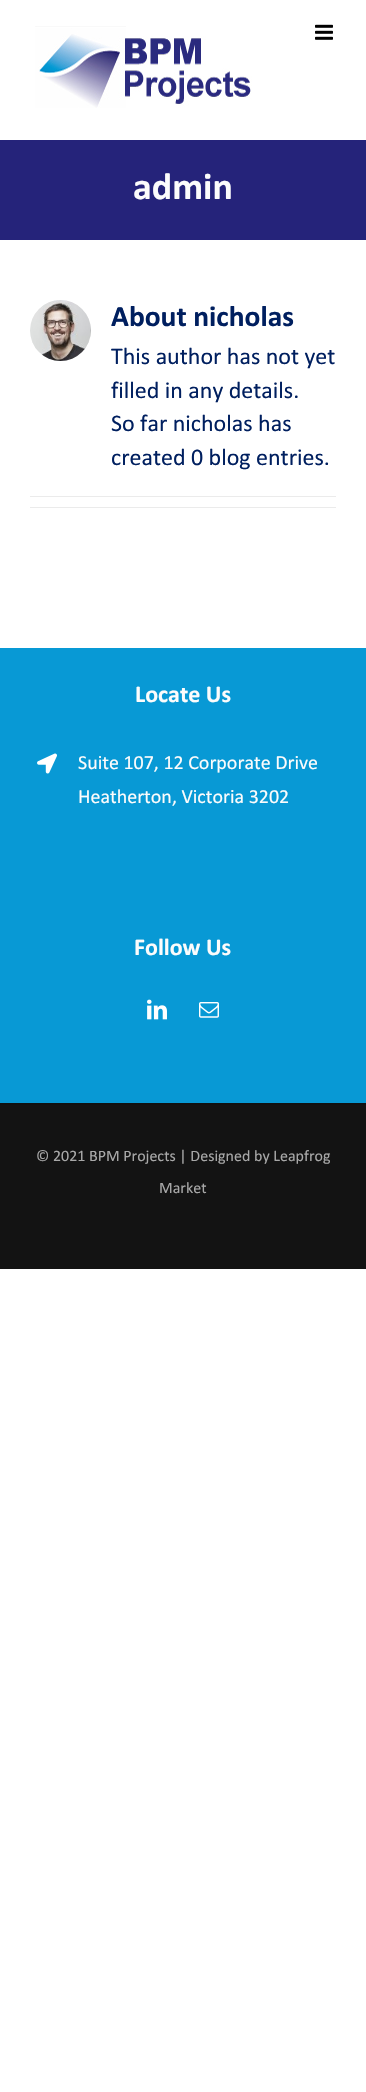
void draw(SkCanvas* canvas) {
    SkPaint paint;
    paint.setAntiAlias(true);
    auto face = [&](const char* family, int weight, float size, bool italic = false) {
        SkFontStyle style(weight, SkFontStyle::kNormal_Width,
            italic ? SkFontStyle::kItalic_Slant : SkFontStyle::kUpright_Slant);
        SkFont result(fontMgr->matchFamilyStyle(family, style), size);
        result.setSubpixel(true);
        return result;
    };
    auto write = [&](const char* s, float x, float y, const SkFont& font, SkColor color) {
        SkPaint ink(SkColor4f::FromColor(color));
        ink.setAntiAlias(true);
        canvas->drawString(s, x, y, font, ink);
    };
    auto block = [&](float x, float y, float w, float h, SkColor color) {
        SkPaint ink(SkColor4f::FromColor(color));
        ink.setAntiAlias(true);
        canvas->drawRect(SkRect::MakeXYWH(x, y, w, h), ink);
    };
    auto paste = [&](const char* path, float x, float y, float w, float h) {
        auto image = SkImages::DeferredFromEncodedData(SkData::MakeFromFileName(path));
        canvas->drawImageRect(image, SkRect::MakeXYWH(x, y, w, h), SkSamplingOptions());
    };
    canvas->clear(SK_ColorWHITE);
    paste("pic1.png", 35, 26, 217, 82);
    paste("pic2.png", 315, 24, 18, 16);
    block(0, 140, 366, 100, SkColorSetRGB(37, 35, 122));
    auto kFont1 = face("Calibri", 700, 38);
    write("admin", 133, 199, kFont1, SkColorSetRGB(252, 252, 252));
    paste("pic3.png", 30, 300, 61, 61);
    auto kFont2 = face("Calibri", 700, 29.5f);
    write("About nicholas", 111, 326, kFont2, SkColorSetRGB(0, 31, 95));
    auto kFont3 = face("Calibri", 400, 24);
    write("This author has not yet", 111, 364, kFont3, SkColorSetRGB(0, 31, 95));
    write("filled in any details.", 111, 398, kFont3, SkColorSetRGB(0, 31, 95));
    write("So far nicholas has", 111, 431, kFont3, SkColorSetRGB(0, 31, 95));
    write("created 0 blog entries.", 111, 465, kFont3, SkColorSetRGB(0, 31, 95));
    block(30, 496, 306, 1, SkColorSetRGB(235, 235, 235));
    block(30, 507, 306, 1, SkColorSetRGB(235, 235, 235));
    block(0, 648, 366, 455, SkColorSetRGB(8, 153, 213));
    auto kFont4 = face("Calibri", 700, 24);
    write("Locate Us", 135, 702, kFont4, SkColorSetRGB(252, 252, 252));
    paste("pic4.png", 37, 753, 20, 21);
    auto kFont5 = face("Calibri", 400, 20);
    write("Suite 107, 12 Corporate Drive", 78, 769, kFont5, SkColorSetRGB(252, 252, 252));
    write("Heatherton, Victoria 3202", 78, 803, kFont5, SkColorSetRGB(252, 252, 252));
    write("Follow Us", 134, 955, kFont4, SkColorSetRGB(252, 252, 252));
    paste("pic5.png", 147, 999, 20, 21);
    paste("pic6.png", 199, 1002, 20, 16);
    block(0, 1105, 366, 164, SkColorSetRGB(19, 19, 19));
    block(0, 1103, 366, 2, SkColorSetRGB(17, 17, 17));
    auto kFont6 = face("Calibri", 400, 16);
    write("© 2021 BPM Projects | Designed by Leapfrog", 36, 1161, kFont6, SkColorSetRGB(168, 168, 168));
    write("Market", 159, 1193, kFont6, SkColorSetRGB(168, 168, 168));
}
